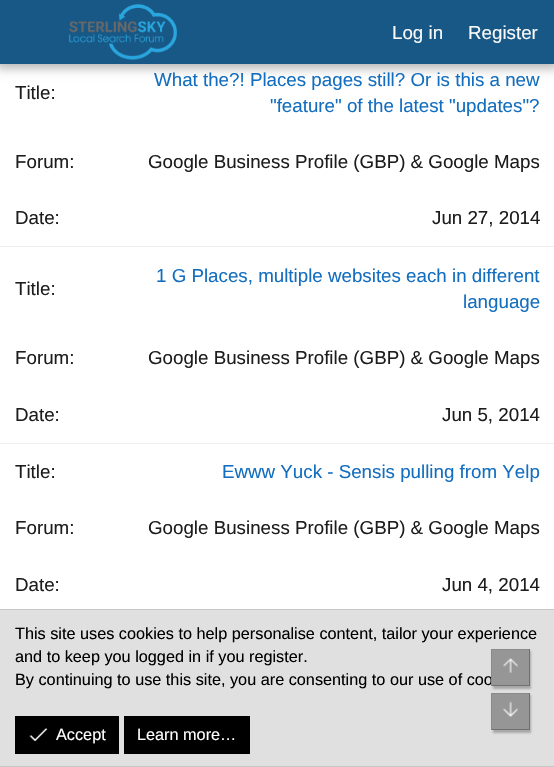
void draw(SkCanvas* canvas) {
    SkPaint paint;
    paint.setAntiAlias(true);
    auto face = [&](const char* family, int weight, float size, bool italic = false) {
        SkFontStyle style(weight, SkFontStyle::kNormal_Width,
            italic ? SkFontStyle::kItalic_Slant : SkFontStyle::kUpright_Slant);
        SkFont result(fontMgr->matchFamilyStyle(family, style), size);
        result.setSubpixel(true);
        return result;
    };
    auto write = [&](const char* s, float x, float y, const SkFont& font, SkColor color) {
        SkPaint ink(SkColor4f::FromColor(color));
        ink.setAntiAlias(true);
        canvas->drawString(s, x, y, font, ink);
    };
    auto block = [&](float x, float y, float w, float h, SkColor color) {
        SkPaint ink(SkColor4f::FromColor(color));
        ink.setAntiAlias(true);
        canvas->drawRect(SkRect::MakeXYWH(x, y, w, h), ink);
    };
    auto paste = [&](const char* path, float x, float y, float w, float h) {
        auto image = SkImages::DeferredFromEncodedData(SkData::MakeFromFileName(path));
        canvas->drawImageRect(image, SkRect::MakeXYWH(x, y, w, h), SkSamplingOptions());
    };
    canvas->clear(SK_ColorWHITE);
    paint.setColor(SkColorSetARGB(77, 0, 0, 0));
    paint.setMaskFilter(SkMaskFilter::MakeBlur(kNormal_SkBlurStyle, 5));
    canvas->drawRect(SkRect::MakeXYWH(-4, -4, 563, 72), paint);
    paint.setMaskFilter(nullptr);
    block(0, 0, 554, 64, SkColorSetRGB(24, 88, 134));
    paste("pic1.png", 69, 4, 108, 56);
    auto kFont1 = face("Liberation Sans", 400, 18.75f);
    write("Log in", 392, 39, kFont1, SkColorSetRGB(249, 249, 249));
    write("Register", 468, 39, kFont1, SkColorSetRGB(249, 249, 249));
    block(0, 246, 554, 1, SkColorSetRGB(238, 238, 238));
    write("Title:", 15, 99, kFont1, SkColorSetRGB(29, 29, 29));
    write("What the?! Places pages still? Or is this a new", 154, 86, kFont1, SkColorSetRGB(19, 110, 191));
    write("\"feature\" of the latest \"updates\"?", 270, 112, kFont1, SkColorSetRGB(19, 110, 191));
    write("Forum:", 15, 168, kFont1, SkColorSetRGB(29, 29, 29));
    write("Google Business Profile (GBP) & Google Maps", 148, 168, kFont1, SkColorSetRGB(29, 29, 29));
    write("Date:", 15, 224, kFont1, SkColorSetRGB(29, 29, 29));
    write("Jun 27, 2014", 432, 224, kFont1, SkColorSetRGB(29, 29, 29));
    block(0, 443, 554, 1, SkColorSetRGB(238, 238, 238));
    write("Title:", 15, 295, kFont1, SkColorSetRGB(29, 29, 29));
    write("1 G Places, multiple websites each in different", 156, 282, kFont1, SkColorSetRGB(19, 110, 191));
    write("language", 463, 308, kFont1, SkColorSetRGB(19, 110, 191));
    write("Forum:", 15, 364, kFont1, SkColorSetRGB(29, 29, 29));
    write("Google Business Profile (GBP) & Google Maps", 148, 364, kFont1, SkColorSetRGB(29, 29, 29));
    write("Date:", 15, 421, kFont1, SkColorSetRGB(29, 29, 29));
    write("Jun 5, 2014", 442, 421, kFont1, SkColorSetRGB(29, 29, 29));
    write("Title:", 15, 478, kFont1, SkColorSetRGB(29, 29, 29));
    write("Ewww Yuck - Sensis pulling from Yelp", 222, 478, kFont1, SkColorSetRGB(19, 110, 191));
    write("Forum:", 15, 534, kFont1, SkColorSetRGB(29, 29, 29));
    write("Google Business Profile (GBP) & Google Maps", 148, 534, kFont1, SkColorSetRGB(29, 29, 29));
    write("Date:", 15, 591, kFont1, SkColorSetRGB(29, 29, 29));
    write("Jun 4, 2014", 442, 591, kFont1, SkColorSetRGB(29, 29, 29));
    block(0, 610, 554, 156, SkColorSetRGB(224, 224, 224));
    block(0, 609, 554, 1, SkColorSetRGB(199, 199, 199));
    block(0, 766, 554, 1, SkColorSetRGB(199, 199, 199));
    auto kFont2 = face("Liberation Sans", 400, 16.25f);
    write("This site uses cookies to help personalise content, tailor your experience", 15, 639, kFont2, SK_ColorBLACK);
    write("and to keep you logged in if you register.", 15, 662, kFont2, SK_ColorBLACK);
    write("By continuing to use this site, you are consenting to our use of coo", 15, 685, kFont2, SK_ColorBLACK);
    block(15, 716, 104, 38, SK_ColorBLACK);
    paste("pic2.png", 29, 728, 19, 14);
    write("Accept", 56, 740, kFont2, SK_ColorWHITE);
    block(124, 716, 126, 38, SK_ColorBLACK);
    write("Learn more…", 137, 740, kFont2, SK_ColorWHITE);
    canvas->save();
    canvas->clipPath(SkPathBuilder(SkPathFillType::kEvenOdd).moveTo(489, 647).lineTo(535, 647).lineTo(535, 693).lineTo(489, 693).close().moveTo(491, 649).lineTo(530, 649).lineTo(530, 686).lineTo(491, 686).close().detach(), true);
    paint.setColor(SkColorSetARGB(64, 0, 0, 0));
    paint.setMaskFilter(SkMaskFilter::MakeBlur(kNormal_SkBlurStyle, 1));
    canvas->drawRect(SkRect::MakeXYWH(493, 651, 38, 38), paint);
    paint.setMaskFilter(nullptr);
    canvas->restore();
    block(492, 650, 37, 35, SkColorSetARGB(191, 125, 125, 125));
    block(491, 649, 39, 1, SkColorSetRGB(138, 138, 138));
    block(529, 649, 1, 37, SkColorSetRGB(112, 112, 112));
    block(491, 685, 39, 1, SkColorSetRGB(112, 112, 112));
    block(491, 649, 1, 37, SkColorSetRGB(138, 138, 138));
    paste("pic3.png", 503, 658, 15, 15);
    paint.setMaskFilter(SkMaskFilter::MakeBlur(kNormal_SkBlurStyle, 1));
    canvas->drawRect(SkRect::MakeXYWH(493, 695, 38, 38), paint);
    paint.setMaskFilter(nullptr);
    block(492, 694, 37, 35, SkColorSetRGB(150, 150, 150));
    block(491, 693, 39, 1, SkColorSetRGB(138, 138, 138));
    block(529, 693, 1, 37, SkColorSetRGB(112, 112, 112));
    block(491, 729, 39, 1, SkColorSetRGB(112, 112, 112));
    block(491, 693, 1, 37, SkColorSetRGB(138, 138, 138));
    paste("pic4.png", 503, 701, 15, 16);
}
